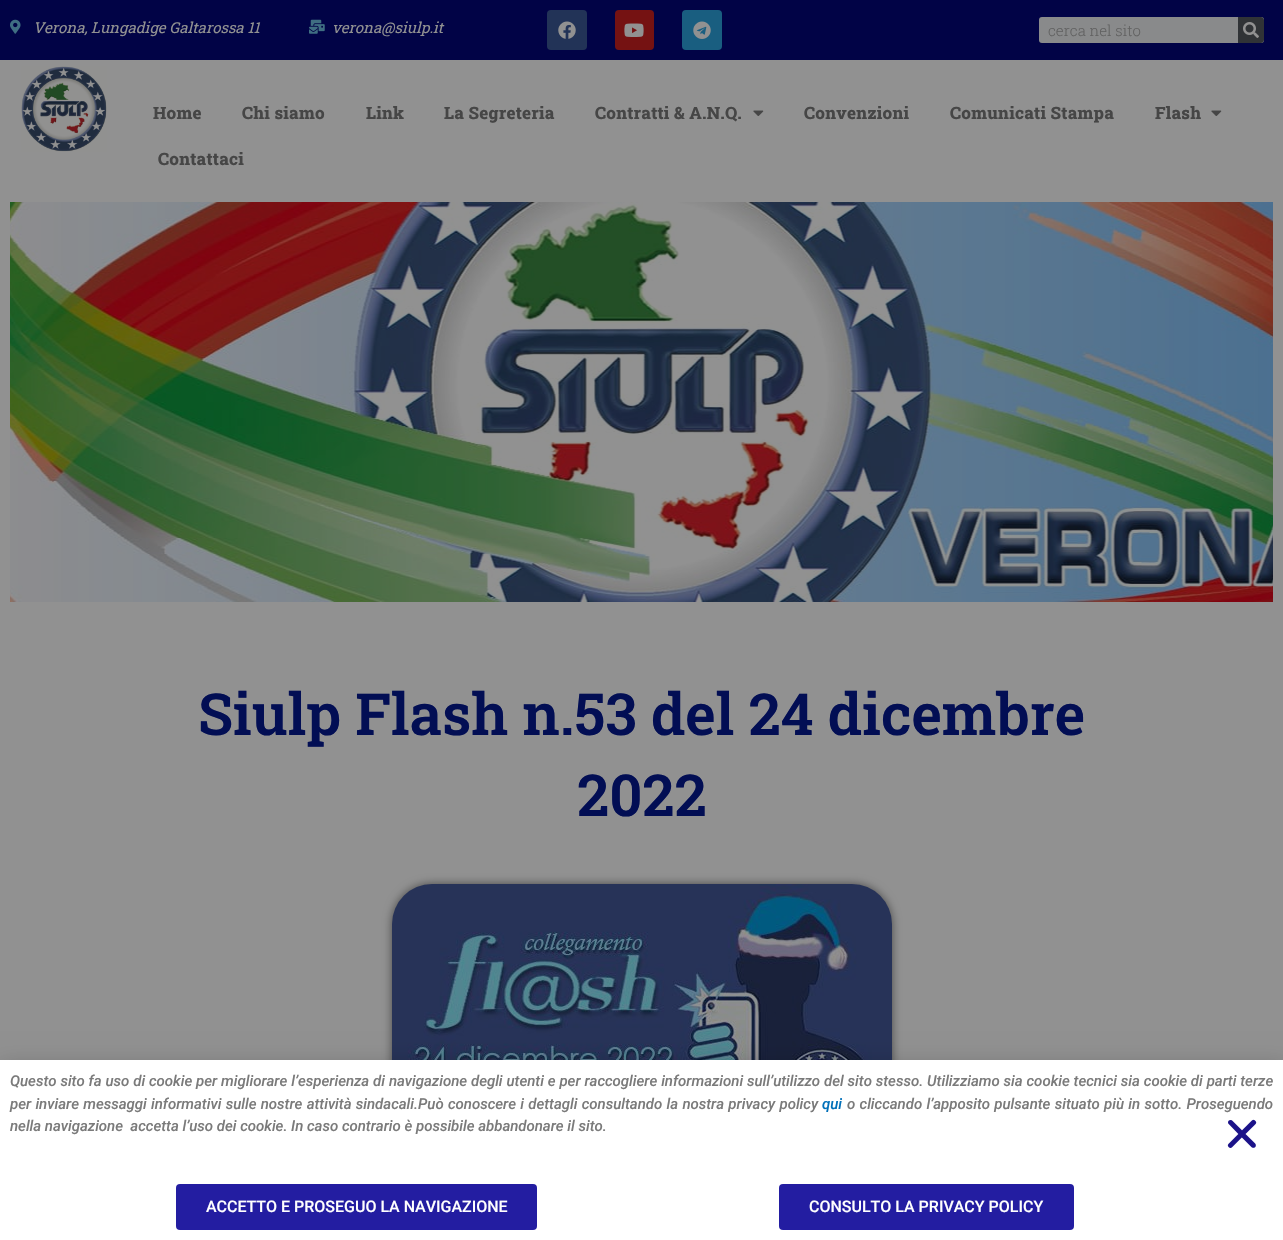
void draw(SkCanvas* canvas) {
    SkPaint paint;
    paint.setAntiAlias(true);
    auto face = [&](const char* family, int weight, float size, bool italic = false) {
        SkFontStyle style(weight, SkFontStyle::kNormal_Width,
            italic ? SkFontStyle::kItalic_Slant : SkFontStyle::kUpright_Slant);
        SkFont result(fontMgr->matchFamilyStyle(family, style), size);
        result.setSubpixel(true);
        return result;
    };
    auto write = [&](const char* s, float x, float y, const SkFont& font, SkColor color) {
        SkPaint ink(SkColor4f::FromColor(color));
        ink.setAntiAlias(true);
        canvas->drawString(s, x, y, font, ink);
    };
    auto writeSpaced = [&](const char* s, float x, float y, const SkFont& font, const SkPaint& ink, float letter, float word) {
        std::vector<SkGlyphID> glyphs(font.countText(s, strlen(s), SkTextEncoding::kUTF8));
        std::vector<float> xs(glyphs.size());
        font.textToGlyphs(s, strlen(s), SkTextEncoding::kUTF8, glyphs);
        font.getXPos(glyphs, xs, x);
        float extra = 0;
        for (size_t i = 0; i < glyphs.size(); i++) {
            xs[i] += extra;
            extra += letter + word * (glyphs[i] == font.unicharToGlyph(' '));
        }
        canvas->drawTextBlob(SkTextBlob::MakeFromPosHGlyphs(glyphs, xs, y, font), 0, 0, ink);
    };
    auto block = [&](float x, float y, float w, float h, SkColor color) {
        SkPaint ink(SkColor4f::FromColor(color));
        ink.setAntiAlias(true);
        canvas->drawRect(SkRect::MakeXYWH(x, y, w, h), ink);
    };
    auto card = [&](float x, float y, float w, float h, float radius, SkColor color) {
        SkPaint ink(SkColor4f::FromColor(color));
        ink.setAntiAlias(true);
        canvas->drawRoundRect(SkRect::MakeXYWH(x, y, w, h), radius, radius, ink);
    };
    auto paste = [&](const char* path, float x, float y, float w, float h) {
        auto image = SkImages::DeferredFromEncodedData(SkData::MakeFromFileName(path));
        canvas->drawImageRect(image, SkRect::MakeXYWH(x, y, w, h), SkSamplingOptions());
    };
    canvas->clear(SkColorSetRGB(145, 145, 145));
    block(0, 0, 1283, 60, SkColorSetRGB(1, 3, 70));
    paste("pic1.png", 10, 19, 11, 15);
    auto kFont1 = face("Roboto Slab", 400, 15, true);
    write("Verona, Lungadige Galtarossa 11", 33, 33, kFont1, SkColorSetRGB(145, 145, 145));
    paste("pic2.png", 309, 19, 16, 15);
    write("verona@siulp.it", 332, 33, kFont1, SkColorSetRGB(145, 145, 145));
    card(547, 10, 40, 40, 4, SkColorSetRGB(34, 51, 87));
    paste("pic3.png", 558, 21, 18, 18);
    card(615, 10, 39, 40, 4, SkColorSetRGB(117, 18, 18));
    paste("pic4.png", 624, 23, 20, 14);
    card(682, 10, 40, 40, 4, SkColorSetRGB(25, 94, 128));
    paste("pic5.png", 693, 21, 18, 18);
    card(1039, 17, 225, 26, 3, SkColorSetRGB(137, 138, 139));
    auto kFont2 = face("Roboto Slab", 300, 15);
    write("cerca nel sito", 1048, 36, kFont2, SkColorSetRGB(97, 97, 97));
    paint.setColor(SkColorSetRGB(48, 51, 54));
    canvas->drawPath(SkPathBuilder().moveTo(1238, 17).lineTo(1261, 17).cubicTo(1262.5f, 17, 1264, 18.5f, 1264, 20).lineTo(1264, 40).cubicTo(1264, 41.5f, 1262.5f, 43, 1261, 43).lineTo(1238, 43).close().detach(), paint);
    paste("pic6.png", 1243, 22, 16, 16);
    paste("pic7.png", 21, 66, 86, 86);
    auto kFont3 = face("Roboto Slab", 800, 17);
    paint.setColor(SkColorSetRGB(70, 70, 70));
    writeSpaced("Home", 153, 119, kFont3, paint, 0.25f, 0);
    writeSpaced("Chi siamo", 242, 119, kFont3, paint, 0.25f, 0);
    writeSpaced("Link", 366, 119, kFont3, paint, 0.25f, 0);
    writeSpaced("La Segreteria", 444, 119, kFont3, paint, 0.25f, 0);
    writeSpaced("Contratti & A.N.Q.", 595, 119, kFont3, paint, 0.25f, 0);
    paste("pic8.png", 753, 110, 11, 6);
    writeSpaced("Convenzioni", 804, 119, kFont3, paint, 0.25f, 0);
    writeSpaced("Comunicati Stampa", 950, 119, kFont3, paint, 0.25f, 0);
    writeSpaced("Flash", 1155, 119, kFont3, paint, 0.25f, 0);
    paste("pic8.png", 1211, 110, 11, 6);
    writeSpaced("Contattaci", 158, 165, kFont3, paint, 0.25f, 0);
    paste("pic9.png", 10, 202, 1263, 400);
    auto kFont4 = face("Roboto Slab", 600, 58);
    write("Siulp Flash n.53 del 24 dicembre", 198, 735, kFont4, SkColorSetRGB(2, 14, 84));
    write("2022", 577, 816, kFont4, SkColorSetRGB(2, 14, 84));
    paint.setColor(SkColorSetARGB(128, 0, 0, 0));
    paint.setMaskFilter(SkMaskFilter::MakeBlur(kNormal_SkBlurStyle, 5));
    canvas->drawRoundRect(SkRect::MakeXYWH(392, 884, 500, 230), 40, 40, paint);
    paint.setMaskFilter(nullptr);
    paste("pic10.png", 392, 884, 500, 176);
    paint.setColor(SkColorSetARGB(51, 0, 0, 0));
    paint.setMaskFilter(SkMaskFilter::MakeBlur(kNormal_SkBlurStyle, 11.5f));
    canvas->drawRect(SkRect::MakeXYWH(-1, 1065, 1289, 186), paint);
    paint.setMaskFilter(nullptr);
    block(0, 1060, 1283, 180, SK_ColorWHITE);
    auto kFont5 = face("Roboto", 500, 15, true);
    paint.setColor(SkColorSetRGB(122, 122, 122));
    writeSpaced("Questo sito fa uso di cookie per migliorare l’esperienza di navigazione degli utenti e per raccogliere informazioni sull’utilizzo del sito stesso. Utilizziamo sia cookie tecnici sia cookie di parti terze", 10, 1086, kFont5, paint, 0, 0.2f);
    writeSpaced("per inviare messaggi informativi sulle nostre attività sindacali.Può conoscere i dettagli consultando la nostra privacy policy", 10, 1109, kFont5, paint, 0, 0.6f);
    write("qui", 822, 1109, kFont5, SkColorSetRGB(1, 112, 185));
    writeSpaced("o cliccando l’apposito pulsante situato più in sotto. Proseguendo", 847, 1109, kFont5, paint, 0, 0.6f);
    write("nella navigazione  accetta l’uso dei cookie. In caso contrario è possibile abbandonare il sito.", 10, 1131, kFont5, SkColorSetRGB(122, 122, 122));
    card(176, 1184, 361, 46, 4, SkColorSetRGB(35, 29, 161));
    auto kFont6 = face("Roboto", 500, 16);
    write("ACCETTO E PROSEGUO LA NAVIGAZIONE", 206, 1212, kFont6, SK_ColorWHITE);
    card(779, 1184, 295, 46, 4, SkColorSetRGB(35, 29, 161));
    write("CONSULTO LA PRIVACY POLICY", 809, 1212, kFont6, SK_ColorWHITE);
    paste("pic11.png", 1227, 1119, 30, 29);
}
